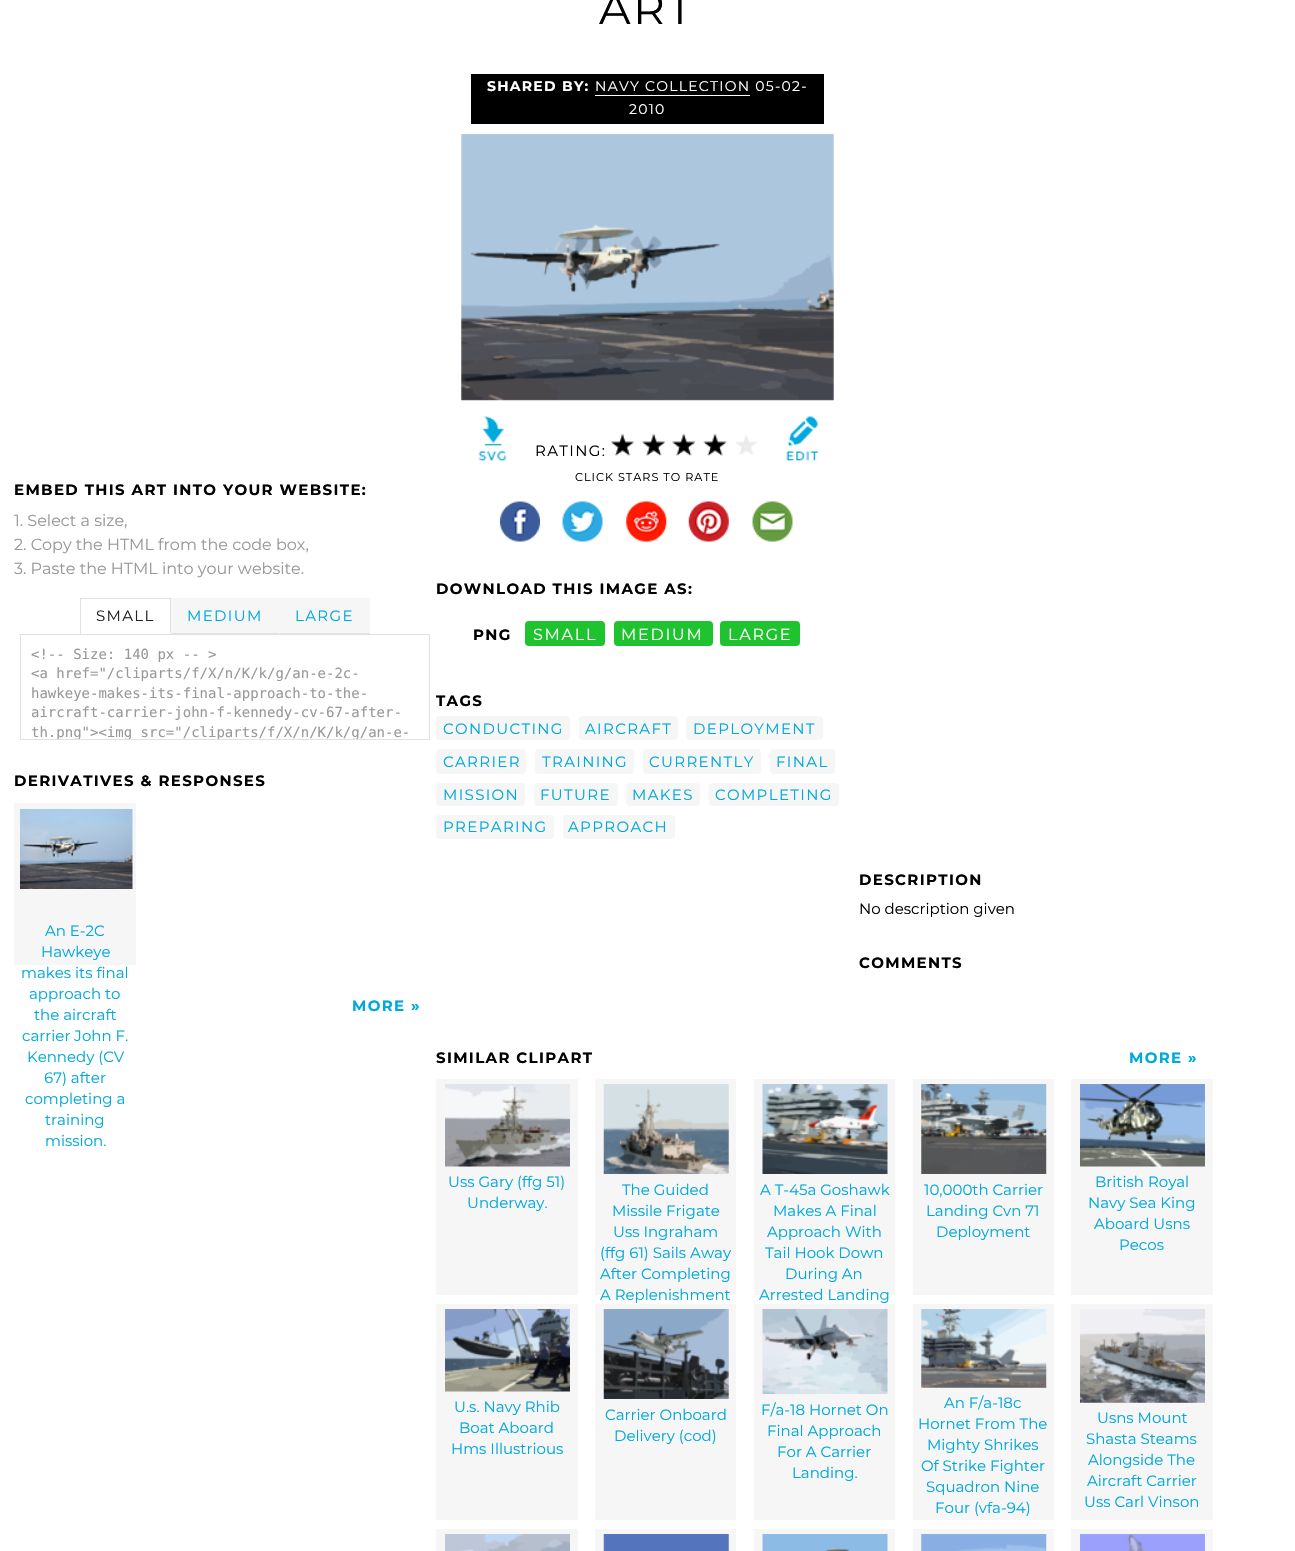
void draw(SkCanvas* canvas) {
    SkPaint paint;
    paint.setAntiAlias(true);
    auto face = [&](const char* family, int weight, float size, bool italic = false) {
        SkFontStyle style(weight, SkFontStyle::kNormal_Width,
            italic ? SkFontStyle::kItalic_Slant : SkFontStyle::kUpright_Slant);
        SkFont result(fontMgr->matchFamilyStyle(family, style), size);
        result.setSubpixel(true);
        return result;
    };
    auto write = [&](const char* s, float x, float y, const SkFont& font, SkColor color) {
        SkPaint ink(SkColor4f::FromColor(color));
        ink.setAntiAlias(true);
        canvas->drawString(s, x, y, font, ink);
    };
    auto writeSpaced = [&](const char* s, float x, float y, const SkFont& font, const SkPaint& ink, float letter, float word) {
        std::vector<SkGlyphID> glyphs(font.countText(s, strlen(s), SkTextEncoding::kUTF8));
        std::vector<float> xs(glyphs.size());
        font.textToGlyphs(s, strlen(s), SkTextEncoding::kUTF8, glyphs);
        font.getXPos(glyphs, xs, x);
        float extra = 0;
        for (size_t i = 0; i < glyphs.size(); i++) {
            xs[i] += extra;
            extra += letter + word * (glyphs[i] == font.unicharToGlyph(' '));
        }
        canvas->drawTextBlob(SkTextBlob::MakeFromPosHGlyphs(glyphs, xs, y, font), 0, 0, ink);
    };
    auto block = [&](float x, float y, float w, float h, SkColor color) {
        SkPaint ink(SkColor4f::FromColor(color));
        ink.setAntiAlias(true);
        canvas->drawRect(SkRect::MakeXYWH(x, y, w, h), ink);
    };
    auto card = [&](float x, float y, float w, float h, float radius, SkColor color) {
        SkPaint ink(SkColor4f::FromColor(color));
        ink.setAntiAlias(true);
        canvas->drawRoundRect(SkRect::MakeXYWH(x, y, w, h), radius, radius, ink);
    };
    auto paste = [&](const char* path, float x, float y, float w, float h) {
        auto image = SkImages::DeferredFromEncodedData(SkData::MakeFromFileName(path));
        canvas->drawImageRect(image, SkRect::MakeXYWH(x, y, w, h), SkSamplingOptions());
    };
    canvas->clear(SK_ColorWHITE);
    auto kFont1 = face("Montserrat", 400, 44);
    paint.setColor(SK_ColorBLACK);
    writeSpaced("ART", 599, 24, kFont1, paint, 2.5f, 0);
    auto kFont2 = face("Montserrat", 700, 15);
    writeSpaced("EMBED THIS ART INTO YOUR WEBSITE:", 14, 495, kFont2, paint, 1.35f, 0);
    auto kFont3 = face("Montserrat", 400, 16);
    write("1. Select a size,", 14, 526, kFont3, SkColorSetRGB(153, 153, 153));
    write("2. Copy the HTML from the code box,", 14, 550, kFont3, SkColorSetRGB(153, 153, 153));
    write("3. Paste the HTML into your website.", 14, 574, kFont3, SkColorSetRGB(153, 153, 153));
    auto kFont4 = face("Montserrat", 400, 15);
    paint.setColor(SkColorSetRGB(34, 34, 34));
    writeSpaced("SMALL", 96, 621, kFont4, paint, 1.35f, 0);
    block(80, 598, 91, 1, SkColorSetRGB(225, 225, 225));
    paint.setColor(SkColorSetRGB(225, 225, 225));
    canvas->drawPath(SkPathBuilder().moveTo(171, 597.5f).lineTo(171, 636).lineTo(170, 632.5f).lineTo(170, 599).close().detach(), paint);
    paint.setColor(SK_ColorWHITE);
    canvas->drawPath(SkPathBuilder().moveTo(171, 636).lineTo(80, 636).lineTo(81, 632).lineTo(170, 632).close().detach(), paint);
    paint.setColor(SkColorSetRGB(225, 225, 225));
    canvas->drawPath(SkPathBuilder().moveTo(80, 636).lineTo(80, 597.5f).lineTo(81, 599).lineTo(81, 632.5f).close().detach(), paint);
    block(172, 598, 107, 35, SkColorSetRGB(246, 246, 246));
    paint.setColor(SkColorSetRGB(0, 169, 219));
    writeSpaced("MEDIUM", 187, 621, kFont4, paint, 1.35f, 0);
    block(171, 633, 199, 1, SkColorSetRGB(225, 225, 225));
    block(171, 598, 1, 36, SkColorSetRGB(246, 246, 246));
    block(280, 598, 90, 35, SkColorSetRGB(246, 246, 246));
    writeSpaced("LARGE", 295, 621, kFont4, paint, 1.35f, 0);
    block(279, 598, 1, 36, SkColorSetRGB(246, 246, 246));
    paint.setStyle(SkPaint::kStroke_Style);
    paint.setStrokeWidth(1);
    paint.setColor(SkColorSetRGB(225, 225, 225));
    canvas->drawRect(SkRect::MakeXYWH(20.5f, 634.5f, 409, 105), paint);
    auto kFont5 = face("DejaVu Sans Mono", 400, 14);
    write("<!-- Size: 140 px -- >", 31, 659, kFont5, SkColorSetRGB(153, 153, 153));
    write("<a href=\"/cliparts/f/X/n/K/k/g/an-e-2c-", 31, 678, kFont5, SkColorSetRGB(153, 153, 153));
    write("hawkeye-makes-its-final-approach-to-the-", 31, 698, kFont5, SkColorSetRGB(153, 153, 153));
    write("aircraft-carrier-john-f-kennedy-cv-67-after-", 31, 717, kFont5, SkColorSetRGB(153, 153, 153));
    canvas->save();
    canvas->clipRect(SkRect::MakeXYWH(21, 635, 408, 104));
    write("th.png\"><img src=\"/cliparts/f/X/n/K/k/g/an-e-", 31, 737, kFont5, SkColorSetRGB(153, 153, 153));
    canvas->restore();
    paint.setStyle(SkPaint::kFill_Style);
    paint.setColor(SK_ColorBLACK);
    writeSpaced("DERIVATIVES & RESPONSES", 14, 786, kFont2, paint, 1.35f, 0);
    block(14, 803, 122, 162, SkColorSetRGB(246, 246, 246));
    paste("pic1.png", 20, 809, 113, 80);
    write("An E-2C", 45, 936, kFont4, SkColorSetRGB(0, 169, 219));
    write("Hawkeye", 41, 957, kFont4, SkColorSetRGB(0, 169, 219));
    write("makes its final", 21, 978, kFont4, SkColorSetRGB(0, 169, 219));
    write("approach to", 29, 999, kFont4, SkColorSetRGB(0, 169, 219));
    write("the aircraft", 34, 1020, kFont4, SkColorSetRGB(0, 169, 219));
    write("carrier John F.", 22, 1041, kFont4, SkColorSetRGB(0, 169, 219));
    write("Kennedy (CV", 27, 1062, kFont4, SkColorSetRGB(0, 169, 219));
    write("67) after", 44, 1083, kFont4, SkColorSetRGB(0, 169, 219));
    write("completing a", 25, 1104, kFont4, SkColorSetRGB(0, 169, 219));
    write("training", 45, 1125, kFont4, SkColorSetRGB(0, 169, 219));
    write("mission.", 45, 1146, kFont4, SkColorSetRGB(0, 169, 219));
    paint.setColor(SkColorSetRGB(0, 169, 219));
    writeSpaced("MORE »", 352, 1011, kFont2, paint, 1.35f, 0);
    block(471, 74, 353, 50, SK_ColorBLACK);
    auto kFont6 = face("Montserrat", 700, 14);
    paint.setColor(SK_ColorWHITE);
    writeSpaced("SHARED BY:", 487, 91, kFont6, paint, 1.25f, 0);
    auto kFont7 = face("Montserrat", 400, 14);
    writeSpaced("NAVY COLLECTION 05-02-", 595, 91, kFont7, paint, 1.25f, 0);
    block(595, 95, 155, 1, SK_ColorWHITE);
    writeSpaced("2010", 629, 114, kFont7, paint, 1.25f, 0);
    paste("pic2.png", 461, 134, 373, 267);
    paste("pic3.png", 478, 416, 29, 45);
    paste("pic4.png", 786, 416, 33, 45);
    paint.setColor(SK_ColorBLACK);
    writeSpaced("RATING:", 535, 456, kFont4, paint, 1.35f, 0);
    paste("pic5.png", 611, 434, 23, 22);
    paste("pic6.png", 642, 434, 23, 22);
    paste("pic6.png", 672, 434, 23, 22);
    paste("pic7.png", 703, 434, 24, 22);
    paste("pic8.png", 735, 434, 23, 21);
    auto kFont8 = face("Montserrat", 400, 11.25f);
    writeSpaced("CLICK STARS TO RATE", 575, 481, kFont8, paint, 1, 0);
    paste("pic9.png", 500, 501, 40, 41);
    paste("pic10.png", 562, 501, 41, 41);
    paste("pic11.png", 626, 501, 41, 41);
    paste("pic12.png", 688, 501, 41, 41);
    paste("pic13.png", 752, 501, 41, 41);
    writeSpaced("DOWNLOAD THIS IMAGE AS:", 436, 594, kFont2, paint, 1.35f, 0);
    writeSpaced("PNG", 473, 640, kFont2, paint, 1.35f, 0);
    card(525, 621, 80, 25, 4, SkColorSetRGB(31, 194, 47));
    paint.setColor(SK_ColorWHITE);
    writeSpaced("SMALL", 533, 640, kFont3, paint, 1.75f, 0);
    card(614, 621, 99, 25, 4, SkColorSetRGB(31, 194, 47));
    writeSpaced("MEDIUM", 621, 640, kFont3, paint, 1.75f, 0);
    card(720, 621, 80, 25, 4, SkColorSetRGB(31, 194, 47));
    writeSpaced("LARGE", 728, 640, kFont3, paint, 1.75f, 0);
    paint.setColor(SK_ColorBLACK);
    writeSpaced("TAGS", 436, 706, kFont2, paint, 1.35f, 0);
    card(436, 716, 134, 24, 4, SkColorSetRGB(246, 246, 246));
    paint.setColor(SkColorSetRGB(0, 169, 219));
    writeSpaced("CONDUCTING", 443, 734, kFont4, paint, 1.35f, 0);
    card(579, 716, 99, 24, 4, SkColorSetRGB(246, 246, 246));
    writeSpaced("AIRCRAFT", 585, 734, kFont4, paint, 1.35f, 0);
    card(686, 716, 137, 24, 4, SkColorSetRGB(246, 246, 246));
    writeSpaced("DEPLOYMENT", 693, 734, kFont4, paint, 1.35f, 0);
    card(436, 749, 90, 25, 4, SkColorSetRGB(246, 246, 246));
    writeSpaced("CARRIER", 443, 767, kFont4, paint, 1.35f, 0);
    card(535, 749, 99, 25, 4, SkColorSetRGB(246, 246, 246));
    writeSpaced("TRAINING", 542, 767, kFont4, paint, 1.35f, 0);
    card(643, 749, 118, 25, 4, SkColorSetRGB(246, 246, 246));
    writeSpaced("CURRENTLY", 649, 767, kFont4, paint, 1.35f, 0);
    card(770, 749, 65, 25, 4, SkColorSetRGB(246, 246, 246));
    writeSpaced("FINAL", 776, 767, kFont4, paint, 1.35f, 0);
    card(436, 783, 89, 23, 4, SkColorSetRGB(246, 246, 246));
    writeSpaced("MISSION", 443, 800, kFont4, paint, 1.35f, 0);
    card(534, 783, 84, 23, 4, SkColorSetRGB(246, 246, 246));
    writeSpaced("FUTURE", 540, 800, kFont4, paint, 1.35f, 0);
    card(626, 783, 74, 23, 4, SkColorSetRGB(246, 246, 246));
    writeSpaced("MAKES", 632, 800, kFont4, paint, 1.35f, 0);
    card(709, 783, 130, 23, 4, SkColorSetRGB(246, 246, 246));
    writeSpaced("COMPLETING", 715, 800, kFont4, paint, 1.35f, 0);
    card(436, 815, 118, 24, 4, SkColorSetRGB(246, 246, 246));
    writeSpaced("PREPARING", 443, 832, kFont4, paint, 1.35f, 0);
    card(563, 815, 112, 24, 4, SkColorSetRGB(246, 246, 246));
    writeSpaced("APPROACH", 568, 832, kFont4, paint, 1.35f, 0);
    paint.setColor(SK_ColorBLACK);
    writeSpaced("DESCRIPTION", 859, 885, kFont2, paint, 1.35f, 0);
    write("No description given", 859, 914, kFont4, SK_ColorBLACK);
    writeSpaced("COMMENTS", 859, 968, kFont2, paint, 1.35f, 0);
    writeSpaced("SIMILAR CLIPART", 436, 1063, kFont2, paint, 1.35f, 0);
    paint.setColor(SkColorSetRGB(0, 169, 219));
    writeSpaced("MORE »", 1129, 1063, kFont2, paint, 1.35f, 0);
    block(436, 1079, 142, 216, SkColorSetRGB(246, 246, 246));
    paste("pic14.png", 445, 1084, 125, 83);
    write("Uss Gary (ffg 51)", 448, 1187, kFont4, SkColorSetRGB(0, 169, 219));
    write("Underway.", 467, 1208, kFont4, SkColorSetRGB(0, 169, 219));
    block(595, 1079, 141, 216, SkColorSetRGB(246, 246, 246));
    paste("pic15.png", 603, 1084, 126, 90);
    write("The Guided", 622, 1195, kFont4, SkColorSetRGB(0, 169, 219));
    write("Missile Frigate", 612, 1216, kFont4, SkColorSetRGB(0, 169, 219));
    write("Uss Ingraham", 613, 1237, kFont4, SkColorSetRGB(0, 169, 219));
    write("(ffg 61) Sails Away", 600, 1258, kFont4, SkColorSetRGB(0, 169, 219));
    write("After Completing", 600, 1279, kFont4, SkColorSetRGB(0, 169, 219));
    write("A Replenishment", 600, 1300, kFont4, SkColorSetRGB(0, 169, 219));
    block(754, 1079, 141, 216, SkColorSetRGB(246, 246, 246));
    paste("pic16.png", 762, 1084, 126, 90);
    write("A T-45a Goshawk", 760, 1195, kFont4, SkColorSetRGB(0, 169, 219));
    write("Makes A Final", 773, 1216, kFont4, SkColorSetRGB(0, 169, 219));
    write("Approach With", 767, 1237, kFont4, SkColorSetRGB(0, 169, 219));
    write("Tail Hook Down", 765, 1258, kFont4, SkColorSetRGB(0, 169, 219));
    write("During An", 785, 1279, kFont4, SkColorSetRGB(0, 169, 219));
    write("Arrested Landing", 759, 1300, kFont4, SkColorSetRGB(0, 169, 219));
    block(913, 1079, 141, 216, SkColorSetRGB(246, 246, 246));
    paste("pic17.png", 921, 1084, 126, 90);
    write("10,000th Carrier", 924, 1195, kFont4, SkColorSetRGB(0, 169, 219));
    write("Landing Cvn 71", 926, 1216, kFont4, SkColorSetRGB(0, 169, 219));
    write("Deployment", 936, 1237, kFont4, SkColorSetRGB(0, 169, 219));
    block(1071, 1079, 142, 216, SkColorSetRGB(246, 246, 246));
    paste("pic18.png", 1080, 1084, 125, 83);
    write("British Royal", 1095, 1187, kFont4, SkColorSetRGB(0, 169, 219));
    write("Navy Sea King", 1088, 1208, kFont4, SkColorSetRGB(0, 169, 219));
    write("Aboard Usns", 1094, 1229, kFont4, SkColorSetRGB(0, 169, 219));
    write("Pecos", 1119, 1250, kFont4, SkColorSetRGB(0, 169, 219));
    block(436, 1304, 142, 216, SkColorSetRGB(246, 246, 246));
    paste("pic19.png", 445, 1309, 125, 83);
    write("U.s. Navy Rhib", 454, 1412, kFont4, SkColorSetRGB(0, 169, 219));
    write("Boat Aboard", 459, 1433, kFont4, SkColorSetRGB(0, 169, 219));
    write("Hms Illustrious", 451, 1454, kFont4, SkColorSetRGB(0, 169, 219));
    block(595, 1304, 141, 216, SkColorSetRGB(246, 246, 246));
    paste("pic20.png", 603, 1309, 126, 90);
    write("Carrier Onboard", 605, 1420, kFont4, SkColorSetRGB(0, 169, 219));
    write("Delivery (cod)", 614, 1441, kFont4, SkColorSetRGB(0, 169, 219));
    block(754, 1304, 141, 216, SkColorSetRGB(246, 246, 246));
    paste("pic21.png", 762, 1309, 126, 85);
    write("F/a-18 Hornet On", 761, 1415, kFont4, SkColorSetRGB(0, 169, 219));
    write("Final Approach", 767, 1436, kFont4, SkColorSetRGB(0, 169, 219));
    write("For A Carrier", 777, 1457, kFont4, SkColorSetRGB(0, 169, 219));
    write("Landing.", 792, 1478, kFont4, SkColorSetRGB(0, 169, 219));
    block(913, 1304, 141, 216, SkColorSetRGB(246, 246, 246));
    paste("pic22.png", 921, 1309, 126, 79);
    write("An F/a-18c", 944, 1408, kFont4, SkColorSetRGB(0, 169, 219));
    write("Hornet From The", 918, 1429, kFont4, SkColorSetRGB(0, 169, 219));
    write("Mighty Shrikes", 927, 1450, kFont4, SkColorSetRGB(0, 169, 219));
    write("Of Strike Fighter", 921, 1471, kFont4, SkColorSetRGB(0, 169, 219));
    write("Squadron Nine", 926, 1492, kFont4, SkColorSetRGB(0, 169, 219));
    write("Four (vfa-94)", 935, 1513, kFont4, SkColorSetRGB(0, 169, 219));
    block(1071, 1304, 142, 216, SkColorSetRGB(246, 246, 246));
    paste("pic23.png", 1080, 1309, 125, 94);
    write("Usns Mount", 1097, 1423, kFont4, SkColorSetRGB(0, 169, 219));
    write("Shasta Steams", 1086, 1444, kFont4, SkColorSetRGB(0, 169, 219));
    write("Alongside The", 1088, 1465, kFont4, SkColorSetRGB(0, 169, 219));
    write("Aircraft Carrier", 1087, 1486, kFont4, SkColorSetRGB(0, 169, 219));
    write("Uss Carl Vinson", 1084, 1507, kFont4, SkColorSetRGB(0, 169, 219));
    block(436, 1529, 142, 22, SkColorSetRGB(246, 246, 246));
    paste("pic24.png", 445, 1534, 125, 17);
    block(595, 1529, 141, 22, SkColorSetRGB(246, 246, 246));
    paste("pic25.png", 603, 1534, 126, 17);
    block(754, 1529, 141, 22, SkColorSetRGB(246, 246, 246));
    paste("pic26.png", 762, 1534, 126, 17);
    block(913, 1529, 141, 22, SkColorSetRGB(246, 246, 246));
    paste("pic27.png", 921, 1534, 126, 17);
    block(1071, 1529, 142, 22, SkColorSetRGB(246, 246, 246));
    paste("pic28.png", 1080, 1534, 125, 17);
}
